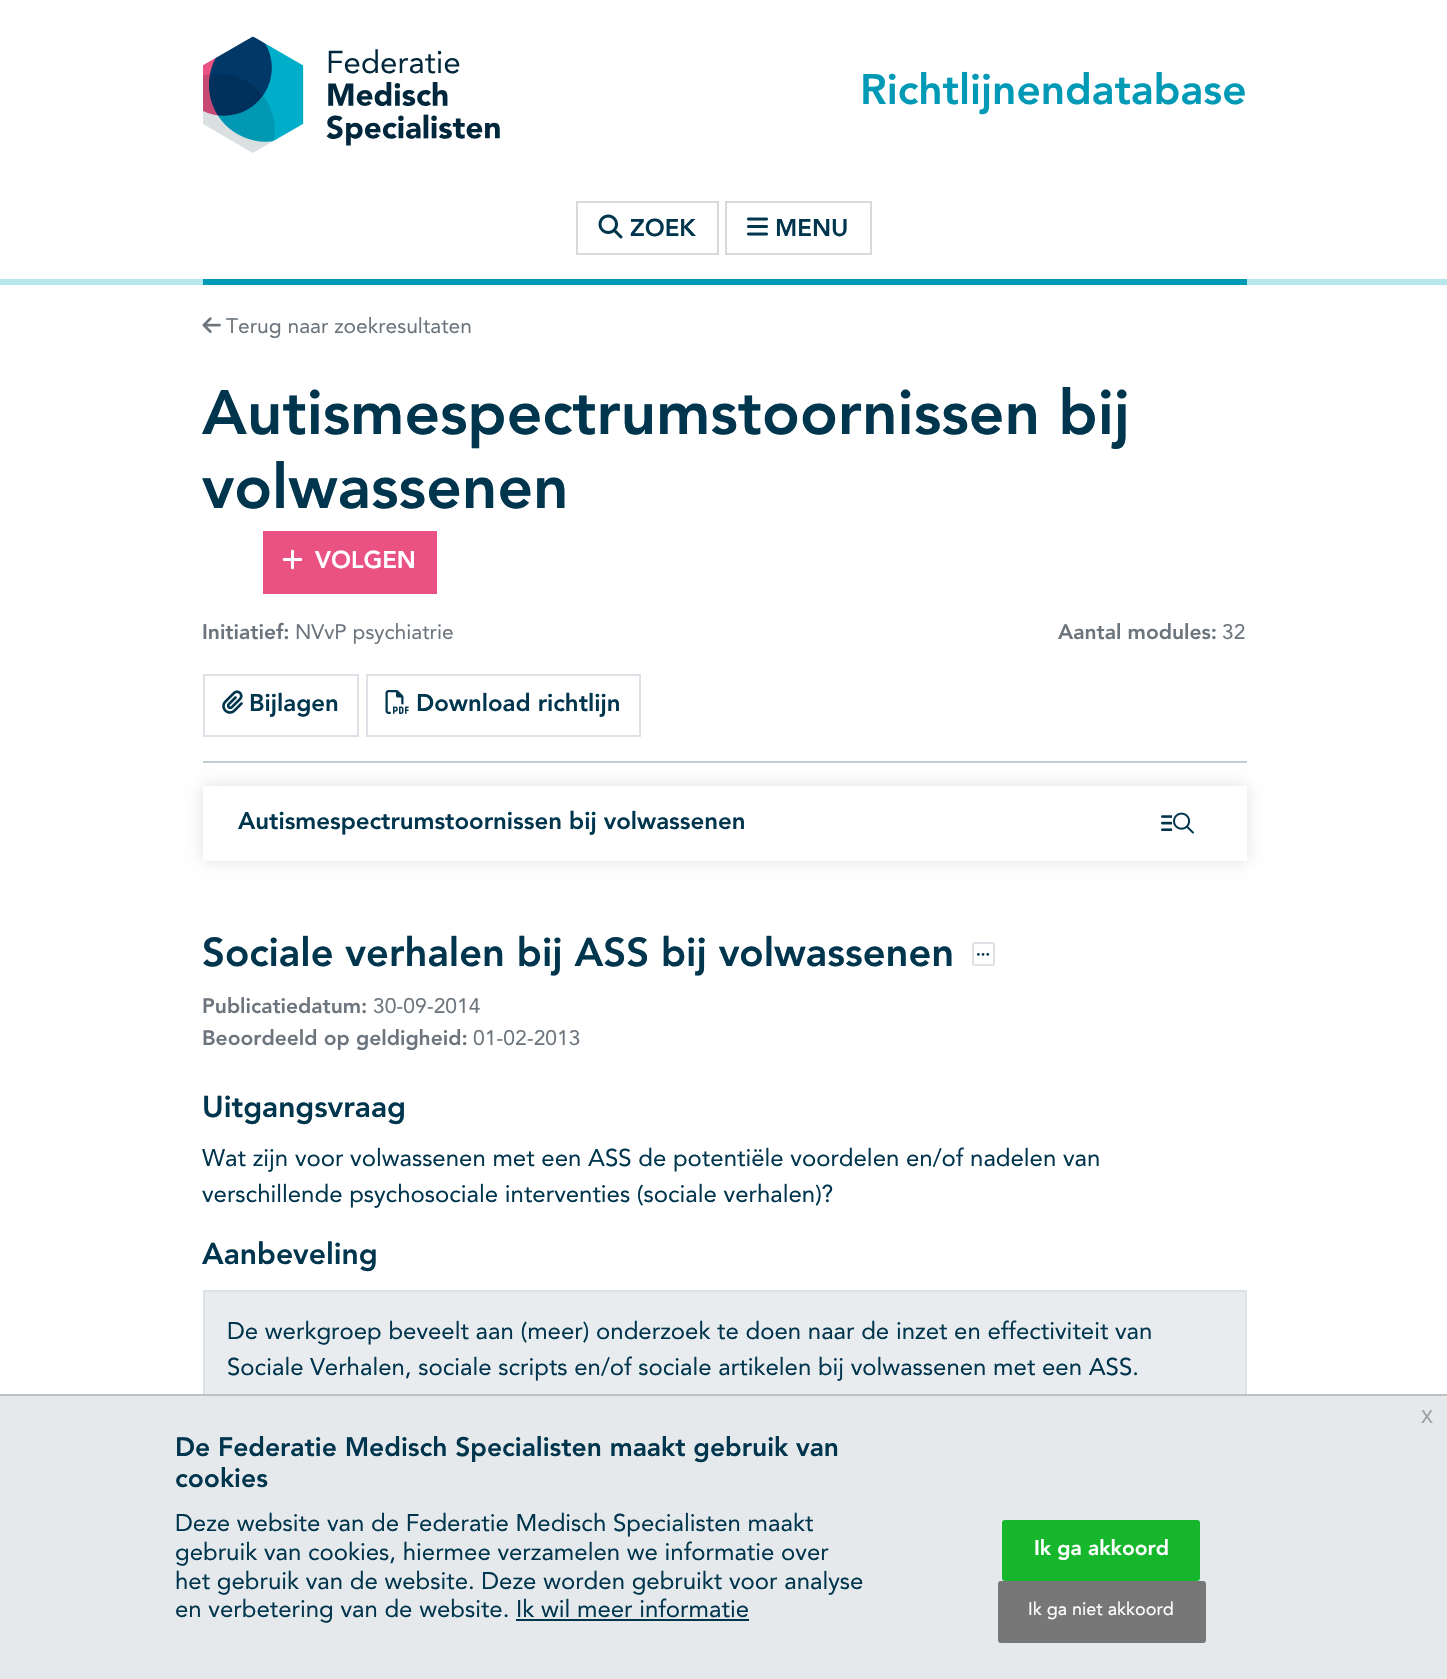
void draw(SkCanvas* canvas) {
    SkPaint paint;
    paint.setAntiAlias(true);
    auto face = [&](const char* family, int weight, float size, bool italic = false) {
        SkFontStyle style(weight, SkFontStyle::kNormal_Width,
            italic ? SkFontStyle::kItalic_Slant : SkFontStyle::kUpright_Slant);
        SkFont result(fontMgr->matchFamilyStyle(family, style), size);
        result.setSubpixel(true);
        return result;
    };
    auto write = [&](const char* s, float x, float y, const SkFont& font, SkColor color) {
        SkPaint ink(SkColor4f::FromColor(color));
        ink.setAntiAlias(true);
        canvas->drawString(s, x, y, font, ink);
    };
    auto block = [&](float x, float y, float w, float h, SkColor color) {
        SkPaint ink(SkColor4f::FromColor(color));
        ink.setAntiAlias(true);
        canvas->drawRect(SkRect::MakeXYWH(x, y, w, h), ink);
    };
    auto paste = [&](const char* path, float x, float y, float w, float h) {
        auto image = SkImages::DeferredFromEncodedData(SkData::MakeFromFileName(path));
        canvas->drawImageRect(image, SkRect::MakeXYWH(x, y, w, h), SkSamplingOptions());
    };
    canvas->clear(SK_ColorWHITE);
    block(0, 279, 1447, 6, SkColorSetRGB(184, 230, 237));
    paste("pic1.png", 203, 36, 297, 117);
    auto kFont1 = face("Avenir", 900, 42.4f);
    write("Richtlijnendatabase", 860, 104, kFont1, SkColorSetRGB(0, 154, 182));
    block(203, 279, 1044, 6, SkColorSetRGB(0, 154, 182));
    paint.setStyle(SkPaint::kStroke_Style);
    paint.setStrokeWidth(2);
    paint.setColor(SkColorSetRGB(217, 217, 217));
    canvas->drawRect(SkRect::MakeXYWH(577, 202, 141, 52), paint);
    paste("pic2.png", 598, 214, 25, 25);
    auto kFont2 = face("Avenir", 900, 24);
    write("ZOEK", 630, 236, kFont2, SkColorSetRGB(0, 53, 78));
    canvas->drawRect(SkRect::MakeXYWH(726, 202, 145, 52), paint);
    paste("pic3.png", 747, 217, 21, 19);
    write("MENU", 775, 236, kFont2, SkColorSetRGB(0, 53, 78));
    paste("pic4.png", 202, 317, 19, 16);
    auto kFont3 = face("Avenir", 400, 21);
    write("Terug naar zoekresultaten", 226, 333, kFont3, SkColorSetRGB(108, 117, 125));
    auto kFont4 = face("Avenir", 900, 62.1f);
    write("Autismespectrumstoornissen bij", 202, 434, kFont4, SkColorSetRGB(0, 53, 78));
    write("volwassenen", 202, 508, kFont4, SkColorSetRGB(0, 53, 78));
    block(263, 531, 174, 63, SkColorSetRGB(235, 82, 132));
    paste("pic5.png", 282, 549, 21, 21);
    write("VOLGEN", 315, 568, kFont2, SK_ColorWHITE);
    auto kFont5 = face("Avenir", 900, 21);
    write("Initiatief:", 202, 639, kFont5, SkColorSetRGB(108, 117, 125));
    write("NVvP psychiatrie", 295, 639, kFont3, SkColorSetRGB(108, 117, 125));
    write("Aantal modules:", 1058, 639, kFont5, SkColorSetRGB(108, 117, 125));
    write("32", 1222, 639, kFont3, SkColorSetRGB(108, 117, 125));
    paint.setColor(SkColorSetRGB(222, 226, 230));
    canvas->drawRect(SkRect::MakeXYWH(204, 675, 154, 61), paint);
    paste("pic6.png", 222, 690, 21, 24);
    write("Bijlagen", 249, 711, kFont2, SkColorSetRGB(0, 53, 78));
    canvas->drawRect(SkRect::MakeXYWH(367, 675, 273, 61), paint);
    paste("pic7.png", 385, 690, 24, 24);
    write("Download richtlijn", 416, 711, kFont2, SkColorSetRGB(0, 53, 78));
    block(203, 761, 1044, 2, SkColorSetRGB(191, 205, 211));
    paint.setStyle(SkPaint::kFill_Style);
    paint.setColor(SkColorSetARGB(31, 0, 0, 0));
    paint.setMaskFilter(SkMaskFilter::MakeBlur(kNormal_SkBlurStyle, 7.5f));
    canvas->drawRect(SkRect::MakeXYWH(203, 786, 1044, 75), paint);
    paint.setMaskFilter(nullptr);
    block(203, 786, 1044, 75, SK_ColorWHITE);
    write("Autismespectrumstoornissen bij volwassenen", 238, 829, kFont2, SkColorSetRGB(0, 53, 78));
    paste("pic8.png", 1161, 815, 11, 16);
    paste("pic9.png", 1173, 812, 21, 22);
    auto kFont6 = face("Avenir", 900, 39.9f);
    write("Sociale verhalen bij ASS bij volwassenen", 202, 966, kFont6, SkColorSetRGB(0, 53, 78));
    paint.setStyle(SkPaint::kStroke_Style);
    paint.setColor(SkColorSetRGB(222, 226, 230));
    canvas->drawRoundRect(SkRect::MakeXYWH(973, 943, 21, 22), 2, 2, paint);
    paste("pic10.png", 977, 953, 13, 3);
    write("Publicatiedatum:", 202, 1013, kFont5, SkColorSetRGB(108, 117, 125));
    write("30-09-2014", 373, 1013, kFont3, SkColorSetRGB(108, 117, 125));
    write("Beoordeeld op geldigheid:", 202, 1045, kFont5, SkColorSetRGB(108, 117, 125));
    write("01-02-2013", 473, 1045, kFont3, SkColorSetRGB(108, 117, 125));
    auto kFont7 = face("Avenir", 900, 30);
    write("Uitgangsvraag", 202, 1117, kFont7, SkColorSetRGB(0, 53, 78));
    auto kFont8 = face("Avenir", 400, 24);
    write("Wat zijn voor volwassenen met een ASS de potentiële voordelen en/of nadelen van", 202, 1166, kFont8, SkColorSetRGB(0, 53, 78));
    write("verschillende psychosociale interventies (sociale verhalen)?", 202, 1202, kFont8, SkColorSetRGB(0, 53, 78));
    write("Aanbeveling", 202, 1264, kFont7, SkColorSetRGB(0, 53, 78));
    block(205, 1292, 1040, 102, SkColorSetRGB(233, 236, 239));
    canvas->drawRect(SkRect::MakeXYWH(204, 1291, 1042, 121), paint);
    write("De werkgroep beveelt aan (meer) onderzoek te doen naar de inzet en effectiviteit van", 227, 1339, kFont8, SkColorSetRGB(0, 53, 78));
    write("Sociale Verhalen, sociale scripts en/of sociale artikelen bij volwassenen met een ASS.", 227, 1375, kFont8, SkColorSetRGB(0, 53, 78));
    block(0, 1396, 1447, 283, SkColorSetRGB(230, 233, 235));
    block(0, 1394, 1447, 2, SkColorSetRGB(192, 192, 192));
    auto kFont9 = face("Liberation Sans", 400, 24);
    write("x", 1421, 1423, kFont9, SkColorSetRGB(162, 162, 162));
    auto kFont10 = face("Avenir", 900, 26.4f);
    write("De Federatie Medisch Specialisten maakt gebruik van", 175, 1456, kFont10, SkColorSetRGB(0, 53, 78));
    write("cookies", 175, 1487, kFont10, SkColorSetRGB(0, 53, 78));
    write("Deze website van de Federatie Medisch Specialisten maakt", 175, 1531, kFont8, SkColorSetRGB(0, 53, 78));
    write("gebruik van cookies, hiermee verzamelen we informatie over", 175, 1560, kFont8, SkColorSetRGB(0, 53, 78));
    write("het gebruik van de website. Deze worden gebruikt voor analyse", 175, 1589, kFont8, SkColorSetRGB(0, 53, 78));
    write("en verbetering van de website. Ik wil meer informatie", 175, 1617, kFont8, SkColorSetRGB(0, 53, 78));
    block(516, 1619, 233, 2, SkColorSetRGB(0, 53, 78));
    paint.setStyle(SkPaint::kFill_Style);
    paint.setColor(SkColorSetRGB(22, 183, 45));
    canvas->drawRoundRect(SkRect::MakeXYWH(1003, 1521, 196, 59), 2, 2, paint);
    paint.setStyle(SkPaint::kStroke_Style);
    canvas->drawRoundRect(SkRect::MakeXYWH(1003, 1521, 196, 59), 2, 2, paint);
    write("Ik ga akkoord", 1034, 1555, kFont5, SK_ColorWHITE);
    paint.setStyle(SkPaint::kFill_Style);
    paint.setColor(SkColorSetRGB(119, 119, 119));
    canvas->drawRoundRect(SkRect::MakeXYWH(999, 1582, 206, 60), 2, 2, paint);
    paint.setStyle(SkPaint::kStroke_Style);
    canvas->drawRoundRect(SkRect::MakeXYWH(999, 1582, 206, 60), 2, 2, paint);
    auto kFont11 = face("Avenir", 400, 18);
    write("Ik ga niet akkoord", 1028, 1615, kFont11, SK_ColorWHITE);
}
